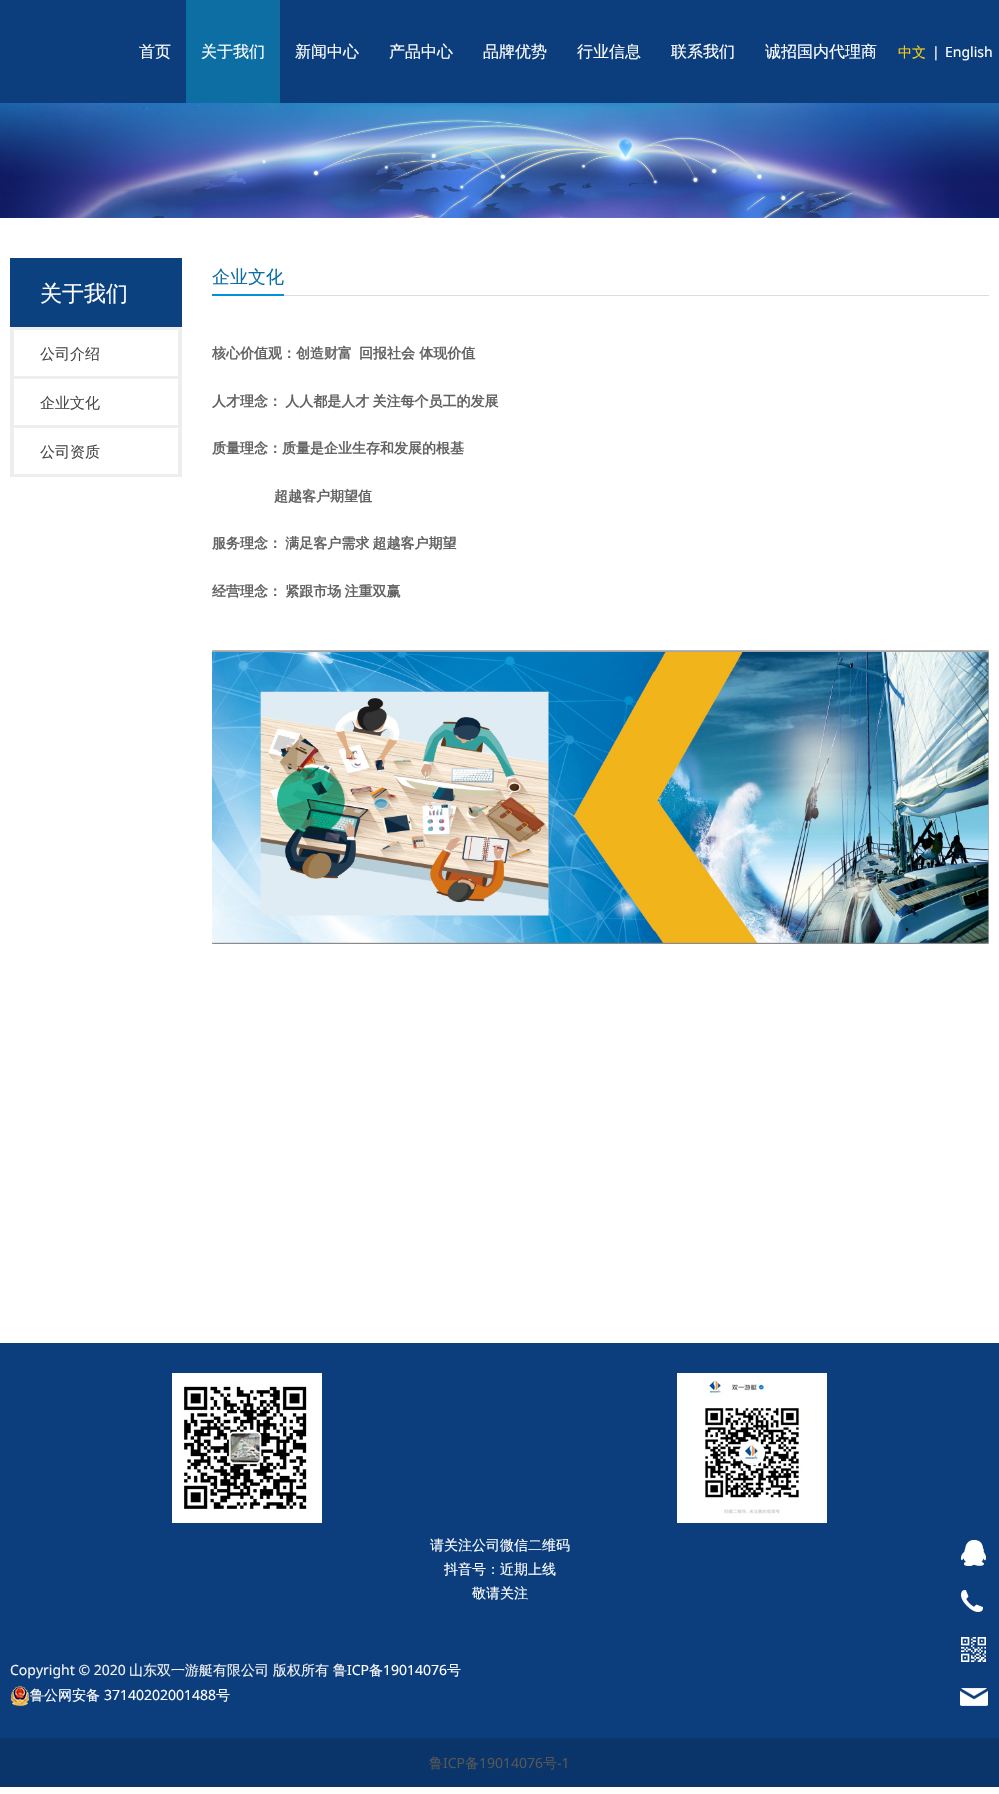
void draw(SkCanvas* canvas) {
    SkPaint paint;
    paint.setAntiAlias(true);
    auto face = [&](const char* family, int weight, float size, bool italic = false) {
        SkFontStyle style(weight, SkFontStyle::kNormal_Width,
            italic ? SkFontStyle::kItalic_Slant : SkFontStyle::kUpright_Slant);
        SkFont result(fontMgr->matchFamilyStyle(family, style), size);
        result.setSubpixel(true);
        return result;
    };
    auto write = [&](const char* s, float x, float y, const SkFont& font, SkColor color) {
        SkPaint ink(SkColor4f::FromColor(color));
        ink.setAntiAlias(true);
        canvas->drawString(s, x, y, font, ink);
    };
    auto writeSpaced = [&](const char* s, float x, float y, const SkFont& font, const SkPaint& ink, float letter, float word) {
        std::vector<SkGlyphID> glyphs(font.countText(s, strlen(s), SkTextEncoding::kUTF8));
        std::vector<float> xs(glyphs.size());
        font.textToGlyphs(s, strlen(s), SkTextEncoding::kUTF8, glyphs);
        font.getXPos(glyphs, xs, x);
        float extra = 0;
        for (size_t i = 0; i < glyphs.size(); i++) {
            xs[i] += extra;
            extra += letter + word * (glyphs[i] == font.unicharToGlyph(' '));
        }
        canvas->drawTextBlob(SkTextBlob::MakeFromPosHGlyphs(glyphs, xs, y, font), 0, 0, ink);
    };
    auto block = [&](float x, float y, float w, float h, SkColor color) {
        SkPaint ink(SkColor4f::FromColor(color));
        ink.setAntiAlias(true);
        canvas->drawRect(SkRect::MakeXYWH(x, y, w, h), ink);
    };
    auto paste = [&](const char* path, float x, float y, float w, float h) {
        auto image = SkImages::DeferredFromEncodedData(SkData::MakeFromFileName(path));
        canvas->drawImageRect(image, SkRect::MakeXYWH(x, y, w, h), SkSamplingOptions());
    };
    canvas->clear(SK_ColorWHITE);
    block(0, 0, 999, 103, SkColorSetRGB(12, 62, 125));
    auto kFont1 = face("WenQuanYi Zen Hei", 500, 16);
    write("首页", 139, 57, kFont1, SK_ColorWHITE);
    block(186, 0, 94, 103, SkColorSetRGB(13, 110, 163));
    write("关于我们", 201, 57, kFont1, SK_ColorWHITE);
    write("新闻中心", 295, 57, kFont1, SK_ColorWHITE);
    write("产品中心", 389, 57, kFont1, SK_ColorWHITE);
    write("品牌优势", 483, 57, kFont1, SK_ColorWHITE);
    write("行业信息", 577, 57, kFont1, SK_ColorWHITE);
    write("联系我们", 671, 57, kFont1, SK_ColorWHITE);
    write("诚招国内代理商", 765, 57, kFont1, SK_ColorWHITE);
    auto kFont2 = face("WenQuanYi Zen Hei", 500, 14);
    write("中文", 898, 57, kFont2, SkColorSetRGB(251, 206, 26));
    auto kFont3 = face("Noto Sans", 400, 14);
    write("|", 932, 57, kFont3, SK_ColorWHITE);
    write("English", 945, 57, kFont3, SK_ColorWHITE);
    paste("pic1.png", 0, 103, 999, 115);
    block(10, 258, 172, 69, SkColorSetRGB(12, 65, 128));
    auto kFont4 = face("WenQuanYi Zen Hei", 500, 22);
    write("关于我们", 40, 301, kFont4, SK_ColorWHITE);
    block(10, 327, 172, 3, SkColorSetRGB(238, 238, 238));
    block(178, 327, 4, 150, SkColorSetRGB(238, 238, 238));
    block(10, 327, 4, 150, SkColorSetRGB(238, 238, 238));
    block(14, 376, 164, 3, SkColorSetRGB(238, 238, 238));
    auto kFont5 = face("WenQuanYi Zen Hei", 500, 15);
    write("公司介绍", 40, 359, kFont5, SkColorSetRGB(72, 72, 72));
    block(14, 425, 164, 3, SkColorSetRGB(238, 238, 238));
    write("企业文化", 40, 408, kFont5, SkColorSetRGB(72, 72, 72));
    block(14, 474, 164, 3, SkColorSetRGB(238, 238, 238));
    write("公司资质", 40, 457, kFont5, SkColorSetRGB(72, 72, 72));
    block(284, 295, 705, 1, SkColorSetRGB(221, 221, 221));
    block(212, 294, 72, 2, SkColorSetRGB(0, 145, 220));
    auto kFont6 = face("WenQuanYi Zen Hei", 500, 18);
    write("企业文化", 212, 283, kFont6, SkColorSetRGB(13, 110, 163));
    auto kFont7 = face("WenQuanYi Zen Hei", 700, 14);
    write("核心价值观：创造财富", 212, 358, kFont7, SkColorSetRGB(99, 99, 99));
    write("回报社会 体现价值", 359, 358, kFont7, SkColorSetRGB(99, 99, 99));
    paint.setColor(SkColorSetRGB(99, 99, 99));
    writeSpaced("人才理念： 人人都是人才 关注每个员工的发展", 212, 406, kFont7, paint, 0, -1);
    write("质量理念：质量是企业生存和发展的根基", 212, 453, kFont7, SkColorSetRGB(99, 99, 99));
    write("超越客户期望值", 274, 501, kFont7, SkColorSetRGB(99, 99, 99));
    writeSpaced("服务理念： 满足客户需求 超越客户期望", 212, 548, kFont7, paint, 0, -1);
    writeSpaced("经营理念： 紧跟市场 注重双赢", 212, 596, kFont7, paint, 0, -1);
    paste("pic2.png", 212, 650, 777, 294);
    block(0, 1343, 999, 395, SkColorSetRGB(12, 62, 125));
    paste("pic3.png", 172, 1373, 150, 150);
    paste("pic4.png", 677, 1373, 150, 150);
    write("请关注公司微信二维码", 430, 1550, kFont2, SK_ColorWHITE);
    write("抖音号：近期上线", 444, 1574, kFont2, SK_ColorWHITE);
    write("敬请关注", 472, 1598, kFont2, SK_ColorWHITE);
    write("Copyright © 2020", 10, 1675, kFont3, SkColorSetRGB(242, 242, 242));
    write("山东双一游艇有限公司", 129, 1675, kFont2, SkColorSetRGB(242, 242, 242));
    write("版权所有", 273, 1675, kFont2, SkColorSetRGB(242, 242, 242));
    write("鲁", 333, 1675, kFont2, SkColorSetRGB(242, 242, 242));
    write("ICP", 347, 1675, kFont3, SK_ColorWHITE);
    write("备", 369, 1675, kFont2, SK_ColorWHITE);
    write("19014076", 383, 1675, kFont3, SK_ColorWHITE);
    write("号", 447, 1675, kFont2, SK_ColorWHITE);
    paste("pic5.png", 11, 1686, 18, 20);
    write("鲁公网安备", 30, 1700, kFont2, SK_ColorWHITE);
    write("37140202001488", 104, 1700, kFont3, SK_ColorWHITE);
    write("号", 216, 1700, kFont2, SK_ColorWHITE);
    block(0, 1738, 999, 49, SkColorSetRGB(10, 53, 106));
    write("鲁", 429, 1768, kFont2, SkColorSetRGB(86, 86, 86));
    write("ICP", 443, 1768, kFont3, SkColorSetRGB(86, 86, 86));
    write("备", 465, 1768, kFont2, SkColorSetRGB(86, 86, 86));
    write("19014076", 479, 1768, kFont3, SkColorSetRGB(86, 86, 86));
    write("号", 543, 1768, kFont2, SkColorSetRGB(86, 86, 86));
    write("-1", 557, 1768, kFont3, SkColorSetRGB(86, 86, 86));
    paste("pic6.png", 961, 1540, 25, 26);
    paste("pic7.png", 961, 1590, 22, 22);
    paste("pic8.png", 961, 1637, 25, 25);
    paste("pic9.png", 960, 1688, 28, 18);
}
